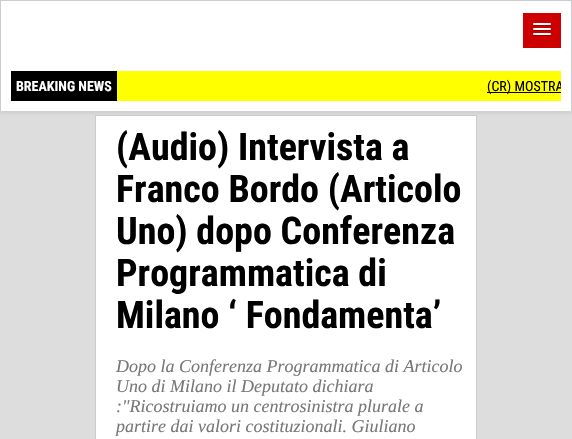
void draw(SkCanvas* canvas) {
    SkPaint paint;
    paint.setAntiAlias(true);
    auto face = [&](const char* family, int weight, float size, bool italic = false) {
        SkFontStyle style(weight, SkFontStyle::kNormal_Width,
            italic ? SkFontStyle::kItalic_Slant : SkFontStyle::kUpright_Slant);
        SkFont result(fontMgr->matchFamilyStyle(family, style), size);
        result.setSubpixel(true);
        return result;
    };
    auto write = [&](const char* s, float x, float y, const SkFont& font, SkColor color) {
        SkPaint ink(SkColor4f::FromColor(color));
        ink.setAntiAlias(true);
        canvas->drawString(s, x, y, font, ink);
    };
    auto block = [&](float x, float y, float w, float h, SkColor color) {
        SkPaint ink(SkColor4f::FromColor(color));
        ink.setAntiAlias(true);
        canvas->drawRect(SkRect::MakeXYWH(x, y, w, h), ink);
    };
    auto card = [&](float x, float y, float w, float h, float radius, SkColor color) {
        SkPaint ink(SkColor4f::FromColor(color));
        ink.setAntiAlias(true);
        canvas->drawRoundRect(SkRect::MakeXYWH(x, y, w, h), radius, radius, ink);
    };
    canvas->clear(SkColorSetRGB(221, 221, 221));
    block(96, 116, 380, 323, SK_ColorWHITE);
    block(95, 115, 382, 1, SkColorSetRGB(204, 204, 204));
    block(476, 115, 1, 324, SkColorSetRGB(204, 204, 204));
    block(95, 115, 1, 324, SkColorSetRGB(204, 204, 204));
    paint.setColor(SkColorSetARGB(13, 0, 0, 0));
    paint.setMaskFilter(SkMaskFilter::MakeBlur(kNormal_SkBlurStyle, 1));
    canvas->drawRect(SkRect::MakeXYWH(0, 3, 572, 111), paint);
    paint.setMaskFilter(nullptr);
    block(1, 1, 570, 110, SK_ColorWHITE);
    block(0, 0, 572, 1, SkColorSetRGB(204, 204, 204));
    block(571, 0, 1, 111, SkColorSetRGB(204, 204, 204));
    block(0, 0, 1, 111, SkColorSetRGB(204, 204, 204));
    block(523, 13, 38, 35, SkColorSetRGB(204, 0, 0));
    paint.setColor(SkColorSetRGB(153, 0, 0));
    canvas->drawPath(SkPathBuilder().moveTo(533, 24.5f).cubicTo(532, 26.5f, 536.5f, 26, 536.5f, 26).lineTo(547.5f, 26).cubicTo(547.5f, 26, 552, 26.5f, 551, 24.5f).cubicTo(550, 25.5f, 543.5f, 25, 542, 25).cubicTo(540.5f, 25, 534, 25.5f, 533, 24.5f).close().detach(), paint);
    card(533, 23, 18, 2, 1, SK_ColorWHITE);
    canvas->drawPath(SkPathBuilder().moveTo(533, 29.5f).cubicTo(532, 31.5f, 536.5f, 31, 536.5f, 31).lineTo(547.5f, 31).cubicTo(547.5f, 31, 552, 31.5f, 551, 29.5f).cubicTo(550, 30.5f, 543.5f, 30, 542, 30).cubicTo(540.5f, 30, 534, 30.5f, 533, 29.5f).close().detach(), paint);
    card(533, 28, 18, 2, 1, SK_ColorWHITE);
    canvas->drawPath(SkPathBuilder().moveTo(533, 34.5f).cubicTo(532, 36.5f, 536.5f, 36, 536.5f, 36).lineTo(547.5f, 36).cubicTo(547.5f, 36, 552, 36.5f, 551, 34.5f).cubicTo(550, 35.5f, 543.5f, 35, 542, 35).cubicTo(540.5f, 35, 534, 35.5f, 533, 34.5f).close().detach(), paint);
    card(533, 33, 18, 2, 1, SK_ColorWHITE);
    block(117, 71, 444, 30, SkColorSetRGB(255, 255, 0));
    block(11, 71, 106, 30, SK_ColorBLACK);
    auto kFont1 = face("Roboto Condensed", 700, 14);
    write("BREAKING NEWS", 16, 91, kFont1, SK_ColorWHITE);
    block(487, 92, 74, 1, SK_ColorBLACK);
    canvas->save();
    canvas->clipRect(SkRect::MakeXYWH(117, 71, 444, 30));
    auto kFont2 = face("Roboto Condensed", 400, 14);
    write("(CR) MOSTRA", 487, 91, kFont2, SK_ColorBLACK);
    canvas->restore();
    auto kFont3 = face("Roboto Condensed", 700, 38);
    write("(Audio) Intervista a", 116, 160, kFont3, SK_ColorBLACK);
    write("Franco Bordo (Articolo", 116, 202, kFont3, SK_ColorBLACK);
    write("Uno) dopo Conferenza", 116, 244, kFont3, SK_ColorBLACK);
    write("Programmatica di", 116, 286, kFont3, SK_ColorBLACK);
    write("Milano ‘ Fondamenta’", 116, 328, kFont3, SK_ColorBLACK);
    auto kFont4 = face("Liberation Serif", 400, 18, true);
    write("Dopo la Conferenza Programmatica di Articolo", 116, 372, kFont4, SkColorSetRGB(119, 119, 119));
    write("Uno di Milano il Deputato dichiara", 116, 392, kFont4, SkColorSetRGB(119, 119, 119));
    write(":\"Ricostruiamo un centrosinistra plurale a", 116, 412, kFont4, SkColorSetRGB(119, 119, 119));
    write("partire dai valori costituzionali. Giuliano", 116, 432, kFont4, SkColorSetRGB(119, 119, 119));
}
